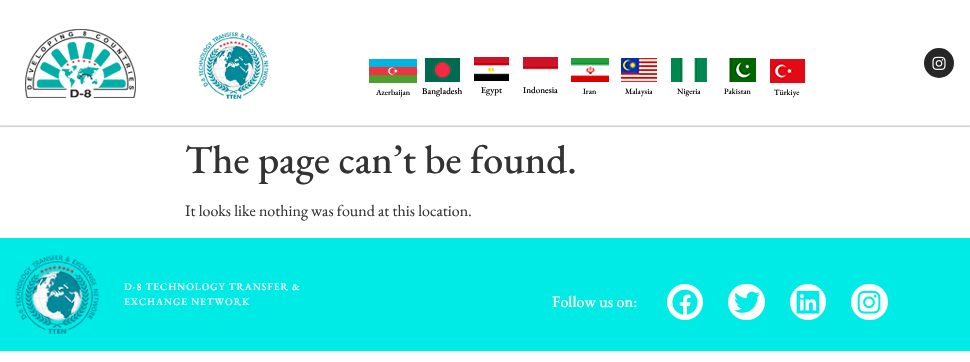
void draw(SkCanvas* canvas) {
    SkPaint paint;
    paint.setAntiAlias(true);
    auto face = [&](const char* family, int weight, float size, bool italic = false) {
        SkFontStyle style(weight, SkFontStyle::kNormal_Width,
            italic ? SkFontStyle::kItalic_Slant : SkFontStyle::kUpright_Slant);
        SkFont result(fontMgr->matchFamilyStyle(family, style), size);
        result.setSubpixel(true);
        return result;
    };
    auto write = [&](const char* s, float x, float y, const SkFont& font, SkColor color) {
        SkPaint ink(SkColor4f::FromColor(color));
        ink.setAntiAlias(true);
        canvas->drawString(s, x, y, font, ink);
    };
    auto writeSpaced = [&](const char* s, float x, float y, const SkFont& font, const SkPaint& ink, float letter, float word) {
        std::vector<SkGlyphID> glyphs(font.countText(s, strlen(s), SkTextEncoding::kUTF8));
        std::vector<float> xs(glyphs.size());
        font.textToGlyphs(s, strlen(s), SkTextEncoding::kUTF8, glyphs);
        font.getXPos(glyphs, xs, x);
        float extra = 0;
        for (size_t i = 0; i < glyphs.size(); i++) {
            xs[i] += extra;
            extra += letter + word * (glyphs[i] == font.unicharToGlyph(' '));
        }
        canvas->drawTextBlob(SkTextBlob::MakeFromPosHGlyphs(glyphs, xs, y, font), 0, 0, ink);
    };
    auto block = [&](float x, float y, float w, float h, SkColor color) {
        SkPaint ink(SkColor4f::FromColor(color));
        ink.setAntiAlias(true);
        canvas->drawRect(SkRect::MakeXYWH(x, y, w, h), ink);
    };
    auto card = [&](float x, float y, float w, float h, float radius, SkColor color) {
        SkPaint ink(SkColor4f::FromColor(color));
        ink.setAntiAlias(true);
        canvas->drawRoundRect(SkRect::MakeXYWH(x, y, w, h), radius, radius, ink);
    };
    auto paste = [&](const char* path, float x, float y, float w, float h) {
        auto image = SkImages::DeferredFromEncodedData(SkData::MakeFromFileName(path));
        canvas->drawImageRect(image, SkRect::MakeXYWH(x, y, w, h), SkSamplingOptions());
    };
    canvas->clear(SK_ColorWHITE);
    paste("pic1.png", 25, 29, 111, 69);
    paste("pic2.png", 198, 32, 71, 67);
    paint.setColor(SkColorSetRGB(38, 38, 38));
    canvas->drawCircle(939, 63, 15, paint);
    paste("pic3.png", 932, 56, 14, 14);
    paste("pic4.png", 369, 59, 48, 24);
    auto kFont1 = face("EB Garamond", 500, 8);
    write("Azerbaijan", 376, 95, kFont1, SkColorSetRGB(5, 5, 5));
    paste("pic5.png", 425, 58, 35, 24);
    auto kFont2 = face("EB Garamond", 500, 9);
    write("Bangladesh", 422, 94, kFont2, SkColorSetRGB(5, 5, 5));
    paste("pic6.png", 474, 57, 35, 24);
    write("Egypt", 481, 93, kFont2, SkColorSetRGB(5, 5, 5));
    paste("pic7.png", 523, 57, 35, 13);
    write("Indonesia", 523, 93, kFont2, SkColorSetRGB(5, 5, 5));
    paste("pic8.png", 571, 58, 38, 24);
    write("Iran", 583, 94, kFont1, SkColorSetRGB(5, 5, 5));
    paste("pic9.png", 621, 58, 36, 24);
    write("Malaysia", 625, 94, kFont1, SkColorSetRGB(5, 5, 5));
    paste("pic10.png", 671, 58, 36, 24);
    write("Nigeria", 677, 94, kFont1, SkColorSetRGB(5, 5, 5));
    paste("pic11.png", 729, 58, 27, 24);
    write("Pakistan", 724, 94, kFont1, SkColorSetRGB(5, 5, 5));
    paste("pic12.png", 770, 59, 35, 24);
    write("Türkiye", 774, 95, kFont1, SkColorSetRGB(5, 5, 5));
    paint.setColor(SkColorSetARGB(51, 0, 0, 0));
    paint.setMaskFilter(SkMaskFilter::MakeBlur(kNormal_SkBlurStyle, 0.5f));
    canvas->drawRect(SkRect::MakeXYWH(0, 126, 970, 1), paint);
    paint.setMaskFilter(nullptr);
    block(0, 125, 970, 1, SkColorSetRGB(226, 226, 226));
    auto kFont3 = face("EB Garamond", 500, 40);
    write("The page can’t be found.", 185, 173, kFont3, SkColorSetRGB(51, 51, 51));
    auto kFont4 = face("EB Garamond", 400, 16);
    write("It looks like nothing was found at this location.", 185, 216, kFont4, SkColorSetRGB(51, 51, 51));
    block(0, 238, 970, 113, SkColorSetRGB(0, 234, 230));
    paste("pic13.png", 15, 255, 84, 79);
    auto kFont5 = face("EB Garamond", 500, 10);
    paint.setColor(SK_ColorWHITE);
    writeSpaced("D-8 TECHNOLOGY TRANSFER &", 124, 290, kFont5, paint, 1, 0);
    writeSpaced("EXCHANGE NETWORK", 124, 305, kFont5, paint, 1, 0);
    auto kFont6 = face("EB Garamond", 500, 16);
    write("Follow us on:", 552, 307, kFont6, SK_ColorWHITE);
    canvas->drawCircle(685, 302, 18, paint);
    paste("pic14.png", 672, 289, 26, 26);
    card(728, 284, 37, 36, 18, SK_ColorWHITE);
    paste("pic15.png", 734, 291, 26, 22);
    canvas->drawCircle(808, 302, 18, paint);
    paste("pic16.png", 796, 290, 24, 24);
    card(851, 284, 37, 36, 18, SK_ColorWHITE);
    paste("pic17.png", 857, 290, 24, 24);
}
